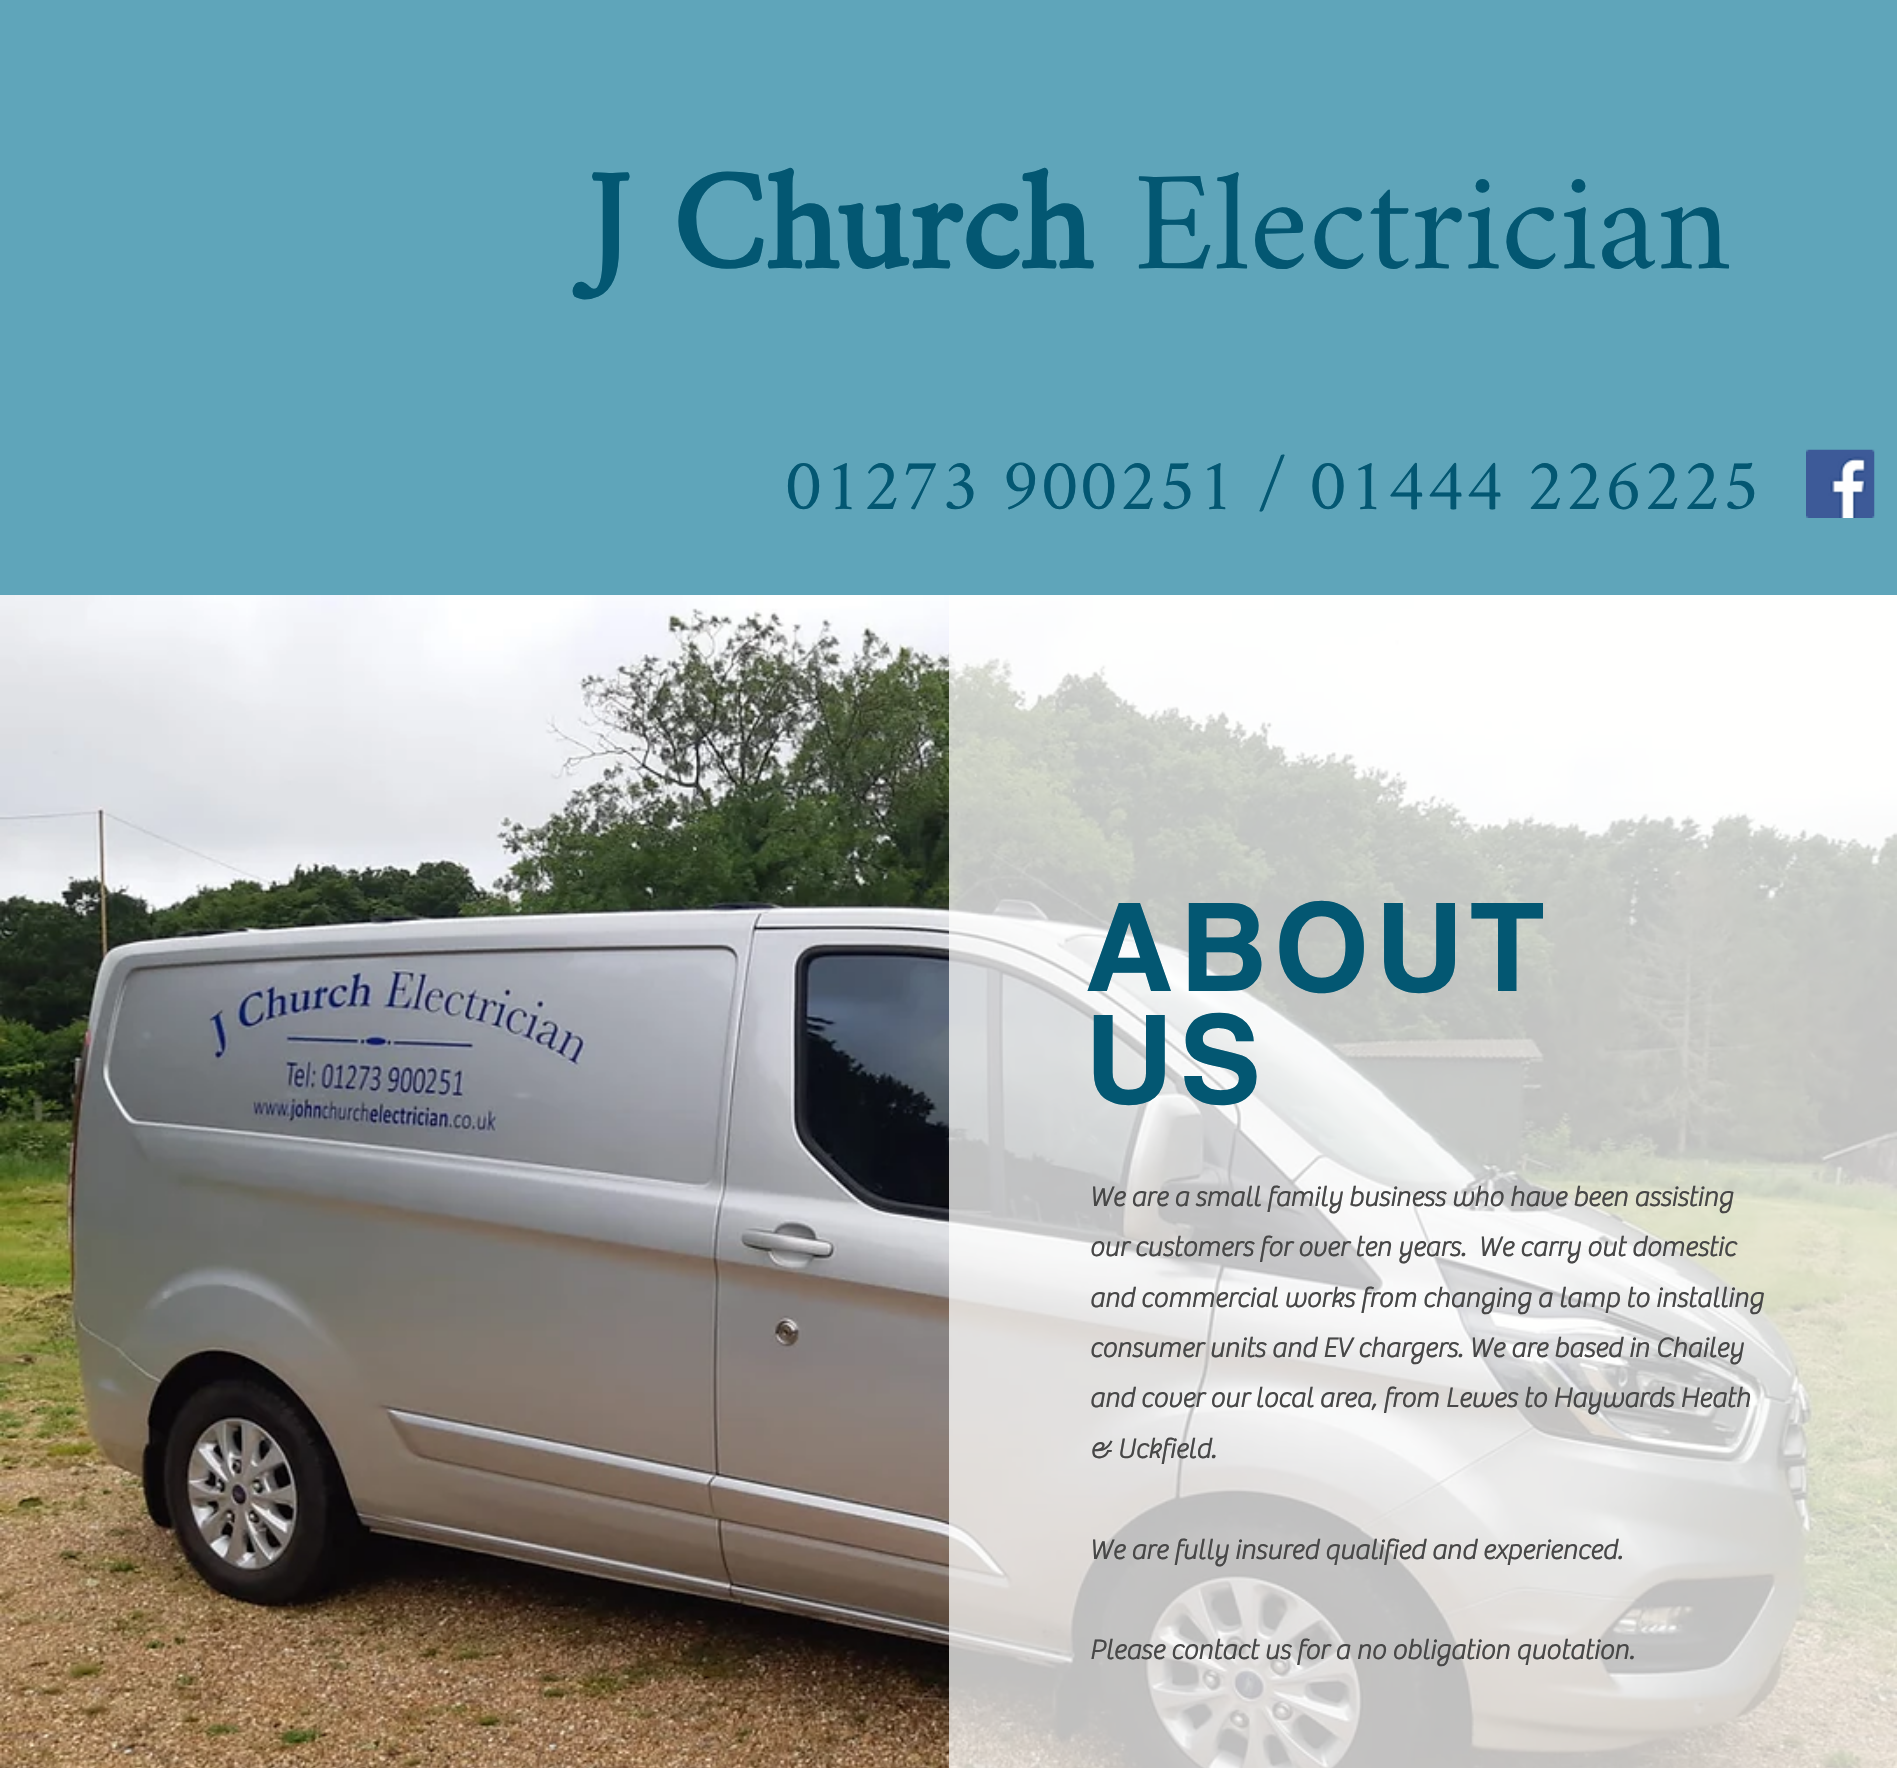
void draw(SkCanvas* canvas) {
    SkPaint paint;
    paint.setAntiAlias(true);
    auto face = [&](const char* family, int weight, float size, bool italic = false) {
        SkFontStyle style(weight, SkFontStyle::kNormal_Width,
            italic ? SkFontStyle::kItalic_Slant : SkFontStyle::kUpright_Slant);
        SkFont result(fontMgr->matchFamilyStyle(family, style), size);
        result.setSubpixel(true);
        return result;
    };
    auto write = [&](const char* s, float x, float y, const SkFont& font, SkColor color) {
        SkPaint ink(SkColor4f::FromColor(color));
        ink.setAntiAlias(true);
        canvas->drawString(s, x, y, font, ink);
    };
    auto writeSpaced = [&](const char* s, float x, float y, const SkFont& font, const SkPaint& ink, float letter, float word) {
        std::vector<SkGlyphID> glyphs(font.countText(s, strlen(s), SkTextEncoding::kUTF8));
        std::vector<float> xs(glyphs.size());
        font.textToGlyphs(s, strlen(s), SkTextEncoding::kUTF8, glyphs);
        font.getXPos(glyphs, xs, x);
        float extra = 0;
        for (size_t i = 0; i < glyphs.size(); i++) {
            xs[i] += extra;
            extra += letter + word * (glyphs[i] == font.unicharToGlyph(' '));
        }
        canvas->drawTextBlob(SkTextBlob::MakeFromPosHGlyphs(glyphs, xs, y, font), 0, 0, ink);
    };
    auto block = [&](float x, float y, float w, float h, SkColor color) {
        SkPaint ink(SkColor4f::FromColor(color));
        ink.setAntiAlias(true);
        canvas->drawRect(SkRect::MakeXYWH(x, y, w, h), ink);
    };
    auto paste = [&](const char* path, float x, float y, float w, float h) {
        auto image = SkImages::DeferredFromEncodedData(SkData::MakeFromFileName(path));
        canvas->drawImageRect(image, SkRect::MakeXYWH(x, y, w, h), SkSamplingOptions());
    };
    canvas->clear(SkColorSetRGB(95, 165, 186));
    auto kFont1 = face("Amiri", 700, 141.75f);
    write("J Church", 587, 268, kFont1, SkColorSetRGB(3, 87, 114));
    auto kFont2 = face("Amiri", 400, 141.75f);
    write("Electrician", 1133, 268, kFont2, SkColorSetRGB(3, 87, 114));
    auto kFont3 = face("Amiri", 400, 73.5f);
    write("01273 900251 / 01444 226225", 784, 509, kFont3, SkColorSetRGB(3, 87, 114));
    paste("pic1.png", 1806, 449, 69, 69);
    paste("pic2.png", 0, 595, 1897, 1173);
    block(949, 595, 948, 1173, SkColorSetARGB(189, 255, 255, 254));
    auto kFont4 = face("helvetica", 700, 122.5f);
    paint.setColor(SkColorSetRGB(3, 87, 114));
    writeSpaced("ABOUT", 1085, 991, kFont4, paint, 6, 0);
    writeSpaced("US", 1085, 1103, kFont4, paint, 6, 0);
    auto kFont5 = face("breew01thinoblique", 700, 28);
    write("We are a small family business who have been assisting", 1089, 1206, kFont5, SkColorSetRGB(71, 71, 71));
    write("our customers for over ten years.  We carry out domestic", 1089, 1256, kFont5, SkColorSetRGB(71, 71, 71));
    write("and commercial works from changing a lamp to installing", 1089, 1307, kFont5, SkColorSetRGB(71, 71, 71));
    write("consumer units and EV chargers. We are based in Chailey", 1089, 1357, kFont5, SkColorSetRGB(71, 71, 71));
    write("and cover our local area, from Lewes to Haywards Heath", 1089, 1407, kFont5, SkColorSetRGB(71, 71, 71));
    write("& Uckfield.", 1089, 1458, kFont5, SkColorSetRGB(71, 71, 71));
    write("We are fully insured qualified and experienced.", 1089, 1559, kFont5, SkColorSetRGB(71, 71, 71));
    write("Please contact us for a no obligation quotation.", 1089, 1659, kFont5, SkColorSetRGB(71, 71, 71));
}
